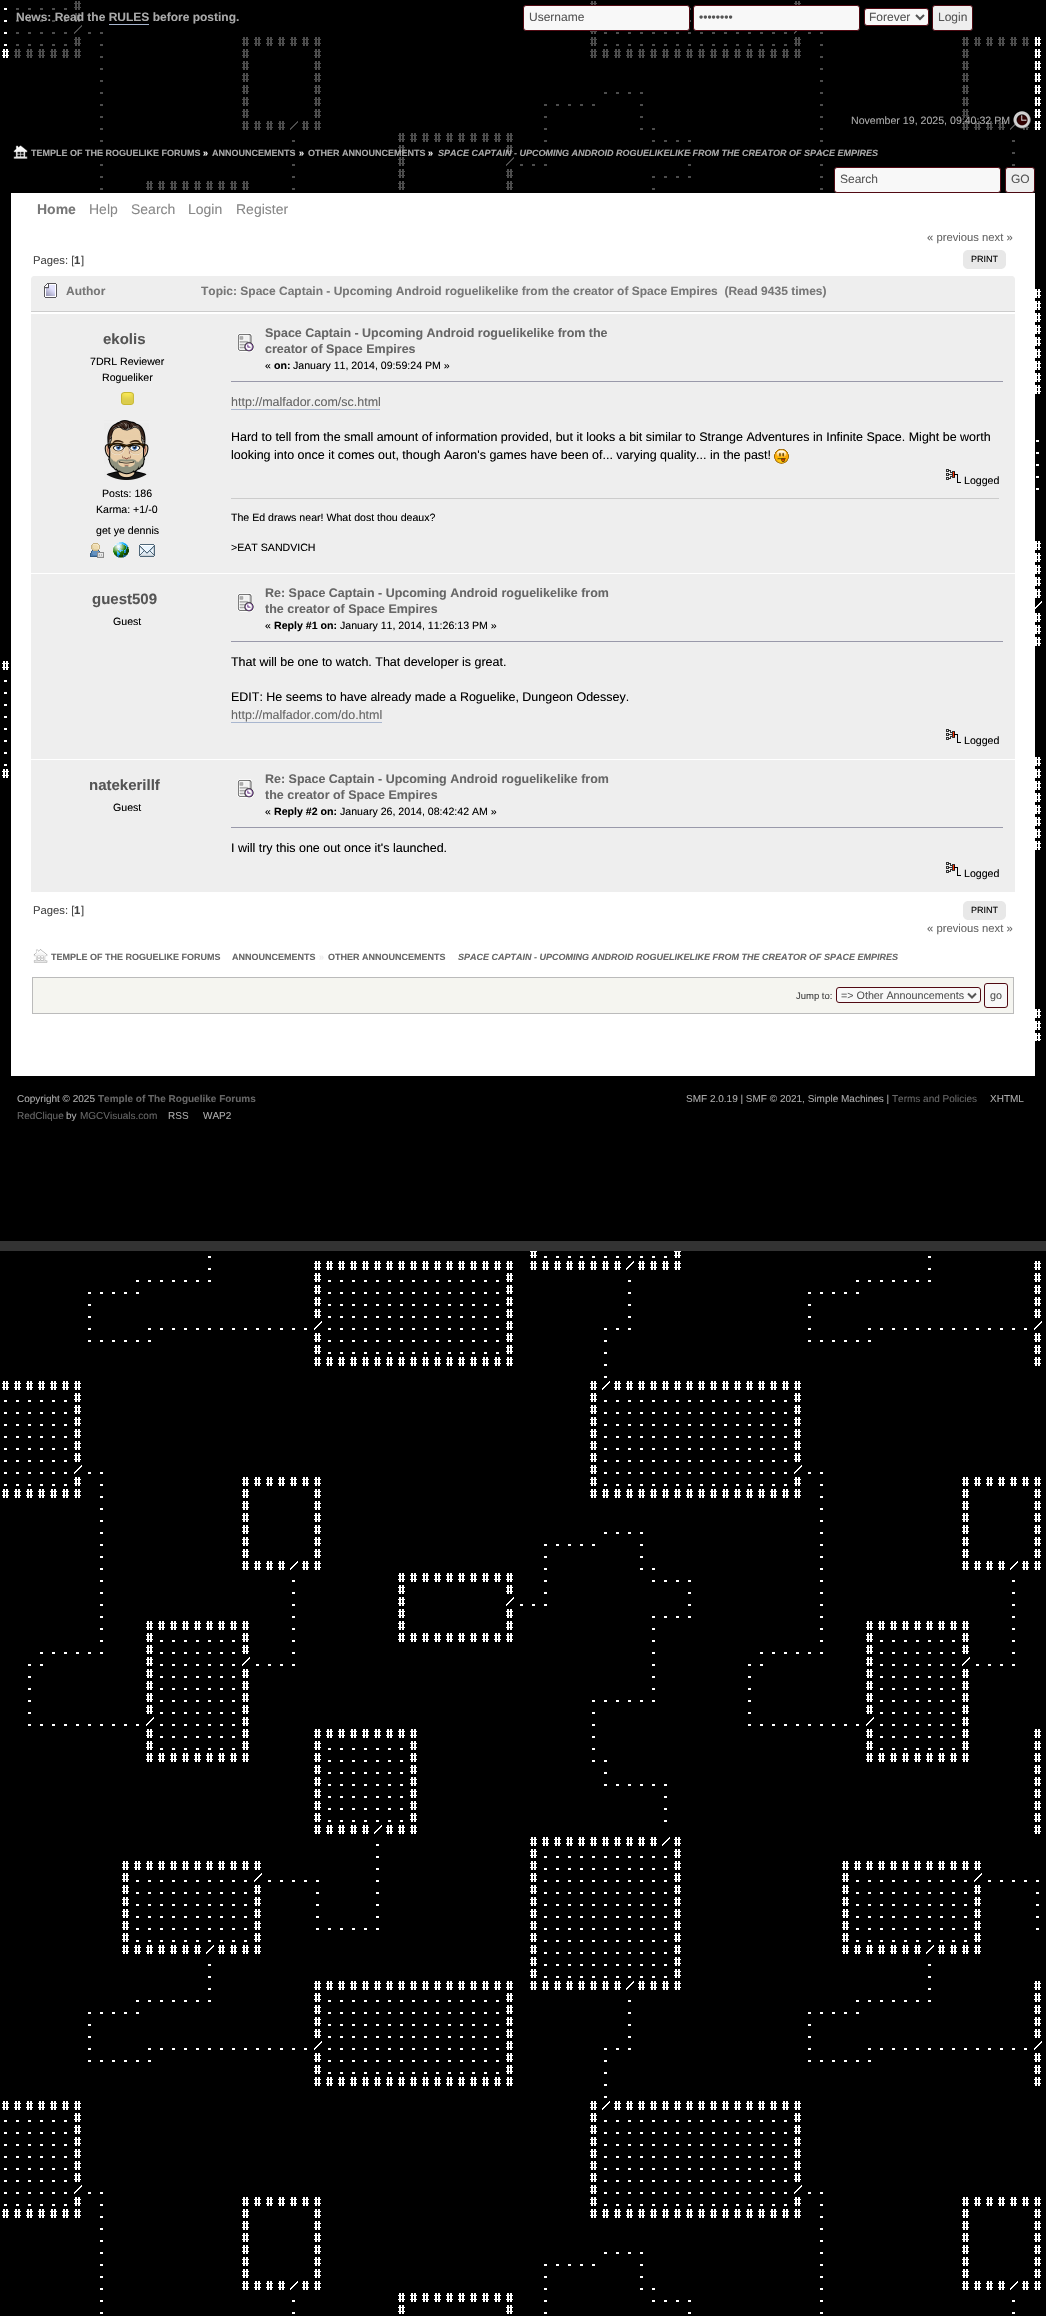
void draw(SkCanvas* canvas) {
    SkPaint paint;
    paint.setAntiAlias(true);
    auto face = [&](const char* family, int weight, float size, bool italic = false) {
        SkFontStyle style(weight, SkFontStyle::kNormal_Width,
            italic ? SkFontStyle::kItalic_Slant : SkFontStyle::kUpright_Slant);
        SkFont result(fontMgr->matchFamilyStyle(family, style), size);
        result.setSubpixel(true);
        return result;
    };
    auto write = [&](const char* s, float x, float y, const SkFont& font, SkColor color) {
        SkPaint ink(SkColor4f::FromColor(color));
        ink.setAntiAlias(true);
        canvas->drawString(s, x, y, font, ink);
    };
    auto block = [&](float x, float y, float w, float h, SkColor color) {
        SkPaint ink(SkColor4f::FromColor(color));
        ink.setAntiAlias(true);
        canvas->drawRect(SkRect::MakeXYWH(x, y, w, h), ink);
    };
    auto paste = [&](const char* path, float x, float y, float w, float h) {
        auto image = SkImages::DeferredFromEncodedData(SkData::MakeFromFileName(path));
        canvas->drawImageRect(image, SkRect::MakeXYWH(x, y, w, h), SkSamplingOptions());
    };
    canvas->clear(SK_ColorBLACK);
    paste("pic1.png", 2, 1, 1040, 2313);
    block(14, 1, 1021, 189, SkColorSetARGB(179, 0, 0, 0));
    auto kFont1 = face("Liberation Sans", 700, 12);
    write("News: Read the RULES before posting.", 16, 21, kFont1, SkColorSetRGB(170, 170, 170));
    block(109, 24, 40, 1, SkColorSetRGB(168, 182, 207));
    paint.setColor(SkColorSetRGB(248, 248, 248));
    canvas->drawRoundRect(SkRect::MakeXYWH(523.5f, 5.5f, 166, 25), 2.5f, 2.5f, paint);
    paint.setStyle(SkPaint::kStroke_Style);
    paint.setStrokeWidth(1);
    paint.setColor(SkColorSetRGB(81, 10, 19));
    canvas->drawRoundRect(SkRect::MakeXYWH(523.5f, 5.5f, 166, 25), 2.5f, 2.5f, paint);
    auto kFont2 = face("Liberation Sans", 400, 12);
    write("Username", 529, 21, kFont2, SkColorSetRGB(85, 85, 85));
    paint.setStyle(SkPaint::kFill_Style);
    paint.setColor(SkColorSetRGB(248, 248, 248));
    canvas->drawRoundRect(SkRect::MakeXYWH(693.5f, 5.5f, 166, 25), 2.5f, 2.5f, paint);
    paint.setStyle(SkPaint::kStroke_Style);
    paint.setColor(SkColorSetRGB(81, 10, 19));
    canvas->drawRoundRect(SkRect::MakeXYWH(693.5f, 5.5f, 166, 25), 2.5f, 2.5f, paint);
    write("••••••••", 699, 21, kFont2, SkColorSetRGB(85, 85, 85));
    paint.setStyle(SkPaint::kFill_Style);
    paint.setColor(SkColorSetRGB(248, 248, 248));
    canvas->drawRoundRect(SkRect::MakeXYWH(864.5f, 8.5f, 64, 17), 2.5f, 2.5f, paint);
    paint.setStyle(SkPaint::kStroke_Style);
    paint.setColor(SkColorSetRGB(81, 10, 19));
    canvas->drawRoundRect(SkRect::MakeXYWH(864.5f, 8.5f, 64, 17), 2.5f, 2.5f, paint);
    paint.setStrokeWidth(2);
    paint.setColor(SkColorSetRGB(85, 85, 85));
    canvas->drawPath(SkPathBuilder().moveTo(916, 15).lineTo(920, 19).lineTo(924, 15).detach(), paint);
    write("Forever", 869, 21, kFont2, SkColorSetRGB(85, 85, 85));
    paint.setStyle(SkPaint::kFill_Style);
    paint.setColor(SkColorSetRGB(238, 238, 238));
    canvas->drawRoundRect(SkRect::MakeXYWH(932.5f, 5.5f, 40, 25), 2.5f, 2.5f, paint);
    paint.setStyle(SkPaint::kStroke_Style);
    paint.setStrokeWidth(1);
    paint.setColor(SkColorSetRGB(75, 9, 17));
    canvas->drawRoundRect(SkRect::MakeXYWH(932.5f, 5.5f, 40, 25), 2.5f, 2.5f, paint);
    write("Login", 938, 21, kFont2, SkColorSetRGB(85, 85, 85));
    paste("pic2.png", 1013, 111, 18, 18);
    auto kFont3 = face("Liberation Sans", 400, 10.6f);
    write("November 19, 2025, 09:40:32 PM", 851, 124, kFont3, SkColorSetRGB(170, 170, 170));
    paste("pic3.png", 13, 145, 15, 14);
    auto kFont4 = face("Liberation Sans", 700, 9);
    write("TEMPLE OF THE ROGUELIKE FORUMS", 31, 156, kFont4, SkColorSetRGB(170, 170, 170));
    write("»", 203, 156, kFont4, SkColorSetRGB(238, 238, 238));
    write("ANNOUNCEMENTS", 212, 156, kFont4, SkColorSetRGB(170, 170, 170));
    write("»", 299, 156, kFont4, SkColorSetRGB(238, 238, 238));
    write("OTHER ANNOUNCEMENTS", 308, 156, kFont4, SkColorSetRGB(170, 170, 170));
    write("»", 428, 156, kFont4, SkColorSetRGB(238, 238, 238));
    auto kFont5 = face("Liberation Sans", 700, 9, true);
    write("SPACE CAPTAIN - UPCOMING ANDROID ROGUELIKELIKE FROM THE CREATOR OF SPACE EMPIRES", 438, 156, kFont5, SkColorSetRGB(170, 170, 170));
    paint.setStyle(SkPaint::kFill_Style);
    paint.setColor(SkColorSetRGB(248, 248, 248));
    canvas->drawRoundRect(SkRect::MakeXYWH(834.5f, 167.5f, 166, 25), 2.5f, 2.5f, paint);
    paint.setStyle(SkPaint::kStroke_Style);
    paint.setColor(SkColorSetRGB(81, 10, 19));
    canvas->drawRoundRect(SkRect::MakeXYWH(834.5f, 167.5f, 166, 25), 2.5f, 2.5f, paint);
    write("Search", 840, 183, kFont2, SkColorSetRGB(85, 85, 85));
    paint.setStyle(SkPaint::kFill_Style);
    paint.setColor(SkColorSetRGB(238, 238, 238));
    canvas->drawRoundRect(SkRect::MakeXYWH(1005.5f, 167.5f, 29, 25), 2.5f, 2.5f, paint);
    paint.setStyle(SkPaint::kStroke_Style);
    paint.setColor(SkColorSetRGB(75, 9, 17));
    canvas->drawRoundRect(SkRect::MakeXYWH(1005.5f, 167.5f, 29, 25), 2.5f, 2.5f, paint);
    write("GO", 1011, 183, kFont2, SkColorSetRGB(85, 85, 85));
    block(11, 193, 1024, 848, SK_ColorWHITE);
    auto kFont6 = face("Liberation Sans", 700, 14);
    write("Home", 37, 214, kFont6, SkColorSetRGB(119, 119, 119));
    auto kFont7 = face("Liberation Sans", 400, 14);
    write("Help", 89, 214, kFont7, SkColorSetRGB(136, 136, 136));
    write("Search", 131, 214, kFont7, SkColorSetRGB(136, 136, 136));
    write("Login", 188, 214, kFont7, SkColorSetRGB(136, 136, 136));
    write("Register", 236, 214, kFont7, SkColorSetRGB(136, 136, 136));
    auto kFont8 = face("Liberation Sans", 400, 11.25f);
    write("« previous next »", 927, 241, kFont8, SkColorSetRGB(102, 102, 102));
    write("Pages: [", 33, 264, kFont8, SkColorSetRGB(68, 68, 68));
    auto kFont9 = face("Liberation Sans", 700, 11.25f);
    write("1", 74, 264, kFont9, SkColorSetRGB(68, 68, 68));
    write("]", 81, 264, kFont8, SkColorSetRGB(68, 68, 68));
    block(967, 250, 35, 19, SkColorSetRGB(232, 232, 232));
    paste("pic4.png", 963, 250, 4, 19);
    paste("pic5.png", 1002, 250, 4, 19);
    auto kFont10 = face("Liberation Sans", 400, 9);
    write("PRINT", 971, 262, kFont10, SK_ColorBLACK);
    paint.setStyle(SkPaint::kFill_Style);
    paint.setColor(SkColorSetRGB(238, 238, 238));
    canvas->drawPath(SkPathBuilder().moveTo(34, 276).lineTo(1012, 276).cubicTo(1013.5f, 276, 1015, 277.5f, 1015, 279).lineTo(1015, 312).lineTo(31, 312).lineTo(31, 279).cubicTo(31, 277.5f, 32.5f, 276, 34, 276).close().detach(), paint);
    block(31, 311, 984, 1, SkColorSetRGB(204, 204, 204));
    paste("pic6.png", 44, 283, 13, 15);
    write("Author", 66, 295, kFont1, SkColorSetRGB(119, 119, 119));
    write("Topic: Space Captain - Upcoming Android roguelikelike from the creator of Space Empires  (Read 9435 times)", 201, 295, kFont1, SkColorSetRGB(119, 119, 119));
    block(31, 314, 984, 259, SkColorSetRGB(238, 238, 238));
    auto kFont11 = face("Liberation Sans", 700, 15);
    write("ekolis", 103, 344, kFont11, SkColorSetRGB(85, 85, 85));
    write("7DRL Reviewer", 90, 365, kFont3, SK_ColorBLACK);
    write("Rogueliker", 102, 381, kFont3, SK_ColorBLACK);
    paste("pic7.png", 121, 392, 13, 13);
    paste("pic8.png", 104, 420, 45, 60);
    write("Posts: 186", 102, 497, kFont3, SK_ColorBLACK);
    write("Karma: +1/-0", 96, 513, kFont3, SK_ColorBLACK);
    write("get ye dennis", 96, 534, kFont3, SK_ColorBLACK);
    paste("pic9.png", 90, 543, 14, 15);
    paste("pic10.png", 113, 542, 16, 16);
    paste("pic11.png", 139, 544, 16, 13);
    paste("pic12.png", 237, 333, 17, 19);
    auto kFont12 = face("Liberation Sans", 700, 12.48f);
    write("Space Captain - Upcoming Android roguelikelike from the", 265, 337, kFont12, SkColorSetRGB(102, 102, 102));
    write("creator of Space Empires", 265, 353, kFont12, SkColorSetRGB(102, 102, 102));
    write("«", 265, 369, kFont3, SK_ColorBLACK);
    auto kFont13 = face("Liberation Sans", 700, 10.6f);
    write("on:", 274, 369, kFont13, SK_ColorBLACK);
    write("January 11, 2014, 09:59:24 PM »", 293, 369, kFont3, SK_ColorBLACK);
    block(231, 381, 772, 1, SkColorSetRGB(153, 153, 170));
    auto kFont14 = face("Liberation Sans", 400, 12.48f);
    write("http://malfador.com/sc.html", 231, 406, kFont14, SkColorSetRGB(102, 102, 102));
    block(231, 409, 149, 1, SkColorSetRGB(168, 182, 207));
    write("Hard to tell from the small amount of information provided, but it looks a bit similar to Strange Adventures in Infinite Space. Might be worth", 231, 441, kFont14, SK_ColorBLACK);
    write("looking into once it comes out, though Aaron's games have been of... varying quality... in the past!", 231, 459, kFont14, SK_ColorBLACK);
    paste("pic13.png", 774, 449, 15, 15);
    paste("pic14.png", 946, 469, 15, 14);
    write("Logged", 964, 484, kFont3, SK_ColorBLACK);
    block(231, 498, 768, 1, SkColorSetRGB(204, 204, 204));
    write("The Ed draws near! What dost thou deaux?", 231, 521, kFont3, SK_ColorBLACK);
    write(">EAT SANDVICH", 231, 551, kFont3, SK_ColorBLACK);
    block(31, 574, 984, 185, SkColorSetRGB(238, 238, 238));
    write("guest509", 92, 604, kFont11, SkColorSetRGB(85, 85, 85));
    write("Guest", 113, 625, kFont3, SK_ColorBLACK);
    paste("pic12.png", 237, 593, 17, 19);
    write("Re: Space Captain - Upcoming Android roguelikelike from", 265, 597, kFont12, SkColorSetRGB(102, 102, 102));
    write("the creator of Space Empires", 265, 613, kFont12, SkColorSetRGB(102, 102, 102));
    write("«", 265, 629, kFont3, SK_ColorBLACK);
    write("Reply #1 on:", 274, 629, kFont13, SK_ColorBLACK);
    write("January 11, 2014, 11:26:13 PM »", 340, 629, kFont3, SK_ColorBLACK);
    block(231, 641, 772, 1, SkColorSetRGB(153, 153, 170));
    write("That will be one to watch. That developer is great.", 231, 666, kFont14, SK_ColorBLACK);
    write("EDIT: He seems to have already made a Roguelike, Dungeon Odessey.", 231, 701, kFont14, SK_ColorBLACK);
    write("http://malfador.com/do.html", 231, 719, kFont14, SkColorSetRGB(102, 102, 102));
    block(231, 722, 151, 1, SkColorSetRGB(168, 182, 207));
    paste("pic14.png", 946, 729, 15, 14);
    write("Logged", 964, 744, kFont3, SK_ColorBLACK);
    block(31, 760, 984, 132, SkColorSetRGB(238, 238, 238));
    write("natekerillf", 89, 790, kFont11, SkColorSetRGB(85, 85, 85));
    write("Guest", 113, 811, kFont3, SK_ColorBLACK);
    paste("pic12.png", 237, 779, 17, 19);
    write("Re: Space Captain - Upcoming Android roguelikelike from", 265, 783, kFont12, SkColorSetRGB(102, 102, 102));
    write("the creator of Space Empires", 265, 799, kFont12, SkColorSetRGB(102, 102, 102));
    write("«", 265, 815, kFont3, SK_ColorBLACK);
    write("Reply #2 on:", 274, 815, kFont13, SK_ColorBLACK);
    write("January 26, 2014, 08:42:42 AM »", 340, 815, kFont3, SK_ColorBLACK);
    block(231, 827, 772, 1, SkColorSetRGB(153, 153, 170));
    write("I will try this one out once it's launched.", 231, 852, kFont14, SK_ColorBLACK);
    paste("pic14.png", 946, 862, 15, 14);
    write("Logged", 964, 877, kFont3, SK_ColorBLACK);
    write("Pages: [", 33, 914, kFont8, SkColorSetRGB(68, 68, 68));
    write("1", 74, 914, kFont9, SkColorSetRGB(68, 68, 68));
    write("]", 81, 914, kFont8, SkColorSetRGB(68, 68, 68));
    block(967, 901, 35, 19, SkColorSetRGB(232, 232, 232));
    paste("pic4.png", 963, 901, 4, 19);
    paste("pic5.png", 1002, 901, 4, 19);
    write("PRINT", 971, 913, kFont10, SK_ColorBLACK);
    write("« previous next »", 927, 932, kFont8, SkColorSetRGB(102, 102, 102));
    paste("pic15.png", 33, 949, 15, 14);
    write("TEMPLE OF THE ROGUELIKE FORUMS", 51, 960, kFont4, SkColorSetRGB(102, 102, 102));
    write("ANNOUNCEMENTS", 232, 960, kFont4, SkColorSetRGB(102, 102, 102));
    write("»", 319, 960, kFont4, SkColorSetRGB(238, 238, 238));
    write("OTHER ANNOUNCEMENTS", 328, 960, kFont4, SkColorSetRGB(102, 102, 102));
    write("SPACE CAPTAIN - UPCOMING ANDROID ROGUELIKELIKE FROM THE CREATOR OF SPACE EMPIRES", 458, 960, kFont5, SkColorSetRGB(102, 102, 102));
    paint.setColor(SkColorSetRGB(245, 245, 240));
    canvas->drawRect(SkRect::MakeXYWH(32.5f, 977.5f, 981, 36), paint);
    paint.setStyle(SkPaint::kStroke_Style);
    paint.setColor(SkColorSetRGB(187, 187, 187));
    canvas->drawRect(SkRect::MakeXYWH(32.5f, 977.5f, 981, 36), paint);
    auto kFont15 = face("Liberation Sans", 400, 9.5f);
    write("Jump to:", 796, 999, kFont15, SkColorSetRGB(68, 68, 68));
    paint.setStyle(SkPaint::kFill_Style);
    paint.setColor(SkColorSetRGB(248, 248, 248));
    canvas->drawRoundRect(SkRect::MakeXYWH(836.5f, 987.5f, 144, 15), 2.5f, 2.5f, paint);
    paint.setStyle(SkPaint::kStroke_Style);
    paint.setColor(SkColorSetRGB(81, 10, 19));
    canvas->drawRoundRect(SkRect::MakeXYWH(836.5f, 987.5f, 144, 15), 2.5f, 2.5f, paint);
    paint.setStrokeWidth(2);
    paint.setColor(SkColorSetRGB(85, 85, 85));
    canvas->drawPath(SkPathBuilder().moveTo(968, 993.5f).lineTo(972, 997.5f).lineTo(976, 993.5f).detach(), paint);
    auto kFont16 = face("Liberation Sans", 400, 10.75f);
    write("=> Other Announcements", 841, 999, kFont16, SkColorSetRGB(85, 85, 85));
    paint.setStyle(SkPaint::kFill_Style);
    paint.setColor(SkColorSetRGB(248, 248, 248));
    canvas->drawRoundRect(SkRect::MakeXYWH(984.5f, 983.5f, 23, 24), 2.5f, 2.5f, paint);
    paint.setStyle(SkPaint::kStroke_Style);
    paint.setStrokeWidth(1);
    paint.setColor(SkColorSetRGB(81, 10, 19));
    canvas->drawRoundRect(SkRect::MakeXYWH(984.5f, 983.5f, 23, 24), 2.5f, 2.5f, paint);
    write("go", 990, 999, kFont16, SkColorSetRGB(85, 85, 85));
    block(122, 1041, 919, 200, SK_ColorBLACK);
    block(11, 1041, 1024, 35, SK_ColorWHITE);
    auto kFont17 = face("Liberation Sans", 400, 10);
    write("Copyright © 2025", 17, 1102, kFont17, SkColorSetRGB(170, 170, 170));
    auto kFont18 = face("Liberation Sans", 700, 10);
    write("Temple of The Roguelike Forums", 98, 1102, kFont18, SkColorSetRGB(102, 102, 102));
    write("RedClique", 17, 1119, kFont17, SkColorSetRGB(102, 102, 102));
    write("by", 66, 1119, kFont17, SkColorSetRGB(170, 170, 170));
    write("MGCVisuals.com", 80, 1119, kFont17, SkColorSetRGB(102, 102, 102));
    write("RSS", 168, 1119, kFont17, SkColorSetRGB(170, 170, 170));
    write("WAP2", 203, 1119, kFont17, SkColorSetRGB(170, 170, 170));
    write("SMF 2.0.19 | SMF © 2021, Simple Machines |", 686, 1102, kFont17, SkColorSetRGB(170, 170, 170));
    write("Terms and Policies", 892, 1102, kFont17, SkColorSetRGB(102, 102, 102));
    write("XHTML", 990, 1102, kFont17, SkColorSetRGB(170, 170, 170));
    block(0, 1241, 1046, 10, SkColorSetRGB(51, 51, 51));
}
